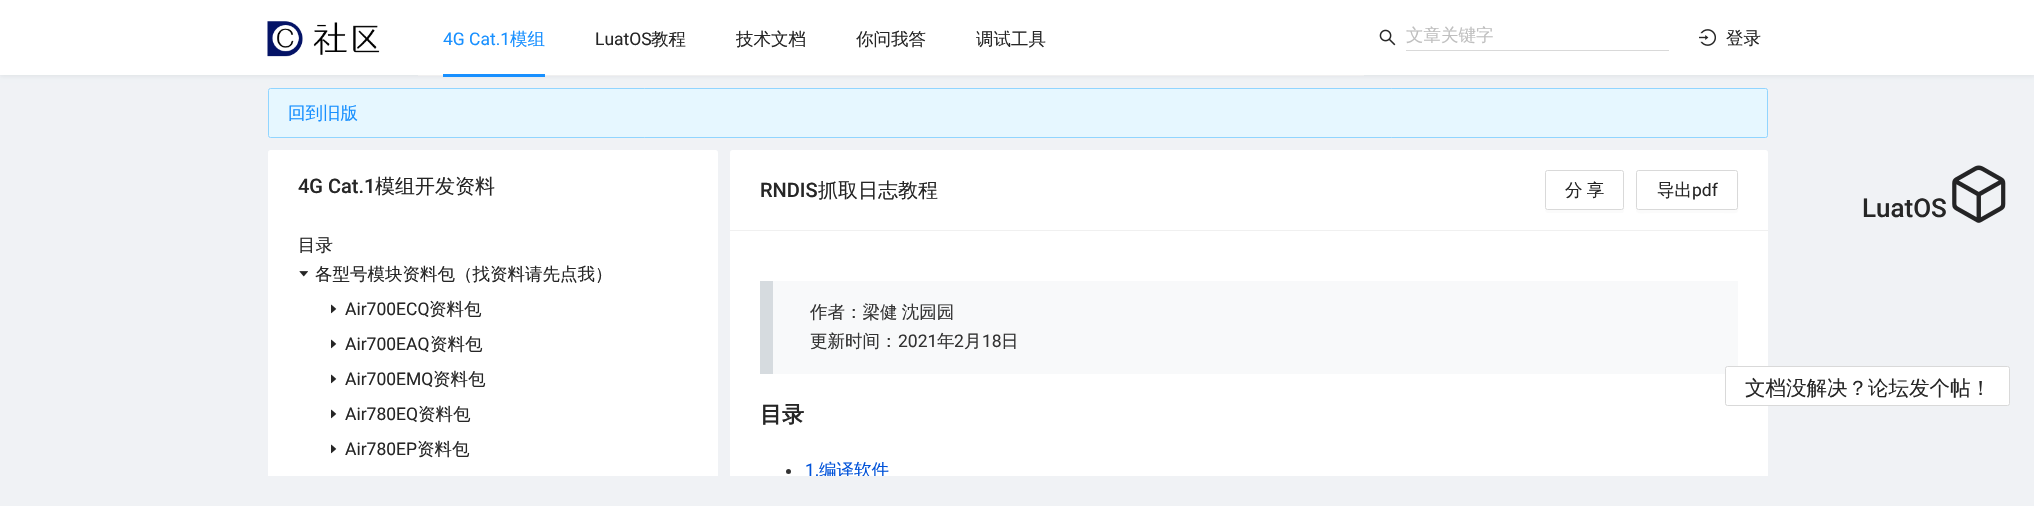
void draw(SkCanvas* canvas) {
    SkPaint paint;
    paint.setAntiAlias(true);
    auto face = [&](const char* family, int weight, float size, bool italic = false) {
        SkFontStyle style(weight, SkFontStyle::kNormal_Width,
            italic ? SkFontStyle::kItalic_Slant : SkFontStyle::kUpright_Slant);
        SkFont result(fontMgr->matchFamilyStyle(family, style), size);
        result.setSubpixel(true);
        return result;
    };
    auto write = [&](const char* s, float x, float y, const SkFont& font, SkColor color) {
        SkPaint ink(SkColor4f::FromColor(color));
        ink.setAntiAlias(true);
        canvas->drawString(s, x, y, font, ink);
    };
    auto writeSpaced = [&](const char* s, float x, float y, const SkFont& font, const SkPaint& ink, float letter, float word) {
        std::vector<SkGlyphID> glyphs(font.countText(s, strlen(s), SkTextEncoding::kUTF8));
        std::vector<float> xs(glyphs.size());
        font.textToGlyphs(s, strlen(s), SkTextEncoding::kUTF8, glyphs);
        font.getXPos(glyphs, xs, x);
        float extra = 0;
        for (size_t i = 0; i < glyphs.size(); i++) {
            xs[i] += extra;
            extra += letter + word * (glyphs[i] == font.unicharToGlyph(' '));
        }
        canvas->drawTextBlob(SkTextBlob::MakeFromPosHGlyphs(glyphs, xs, y, font), 0, 0, ink);
    };
    auto block = [&](float x, float y, float w, float h, SkColor color) {
        SkPaint ink(SkColor4f::FromColor(color));
        ink.setAntiAlias(true);
        canvas->drawRect(SkRect::MakeXYWH(x, y, w, h), ink);
    };
    auto paste = [&](const char* path, float x, float y, float w, float h) {
        auto image = SkImages::DeferredFromEncodedData(SkData::MakeFromFileName(path));
        canvas->drawImageRect(image, SkRect::MakeXYWH(x, y, w, h), SkSamplingOptions());
    };
    canvas->clear(SkColorSetRGB(240, 242, 245));
    paint.setColor(SkColorSetARGB(20, 0, 21, 41));
    paint.setMaskFilter(SkMaskFilter::MakeBlur(kNormal_SkBlurStyle, 2.5f));
    canvas->drawRect(SkRect::MakeXYWH(0, 1, 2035, 75), paint);
    paint.setMaskFilter(nullptr);
    block(0, 0, 2034, 75, SK_ColorWHITE);
    paste("pic1.png", 267, 21, 113, 36);
    block(418, 75, 946, 1, SkColorSetRGB(240, 240, 240));
    auto kFont1 = face("Roboto", 400, 17.5f);
    write("4G Cat.1", 443, 45, kFont1, SkColorSetRGB(24, 144, 255));
    auto kFont2 = face("WenQuanYi Zen Hei", 500, 17.5f);
    write("模组", 510, 45, kFont2, SkColorSetRGB(24, 144, 255));
    block(443, 74, 102, 3, SkColorSetRGB(24, 144, 255));
    write("LuatOS", 595, 45, kFont1, SkColorSetRGB(38, 38, 38));
    write("教程", 651, 45, kFont2, SkColorSetRGB(38, 38, 38));
    write("技术文档", 736, 45, kFont2, SkColorSetRGB(38, 38, 38));
    write("你问我答", 856, 45, kFont2, SkColorSetRGB(38, 38, 38));
    write("调试工具", 976, 45, kFont2, SkColorSetRGB(38, 38, 38));
    paste("pic2.png", 1379, 29, 17, 17);
    block(1406, 50, 263, 1, SkColorSetRGB(217, 217, 217));
    write("文章关键字", 1406, 41, kFont2, SkColorSetRGB(191, 191, 191));
    paste("pic3.png", 1699, 29, 17, 17);
    write("登录", 1726, 44, kFont2, SkColorSetRGB(38, 38, 38));
    paint.setColor(SkColorSetRGB(230, 247, 255));
    canvas->drawRoundRect(SkRect::MakeXYWH(268.5f, 88.5f, 1499, 49), 2, 2, paint);
    paint.setStyle(SkPaint::kStroke_Style);
    paint.setStrokeWidth(1);
    paint.setColor(SkColorSetRGB(145, 213, 255));
    canvas->drawRoundRect(SkRect::MakeXYWH(268.5f, 88.5f, 1499, 49), 2, 2, paint);
    write("回到旧版", 288, 119, kFont2, SkColorSetRGB(24, 144, 255));
    paint.setStyle(SkPaint::kFill_Style);
    paint.setColor(SK_ColorWHITE);
    canvas->drawPath(SkPathBuilder().moveTo(270.5f, 150).lineTo(715.5f, 150).cubicTo(717, 150, 718, 151, 718, 152.5f).lineTo(718, 476).lineTo(268, 476).lineTo(268, 152.5f).cubicTo(268, 151, 269, 150, 270.5f, 150).close().detach(), paint);
    auto kFont3 = face("Roboto", 500, 20);
    write("4G Cat.1", 298, 193, kFont3, SkColorSetRGB(38, 38, 38));
    auto kFont4 = face("WenQuanYi Zen Hei", 500, 20);
    write("模组开发资料", 375, 193, kFont4, SkColorSetRGB(38, 38, 38));
    write("目录", 298, 251, kFont2, SkColorSetRGB(38, 38, 38));
    paste("pic4.png", 299, 271, 9, 6);
    write("各型号模块资料包（找资料请先点我）", 315, 280, kFont2, SkColorSetRGB(38, 38, 38));
    paste("pic5.png", 331, 304, 6, 10);
    write("Air700ECQ", 345, 315, kFont1, SkColorSetRGB(38, 38, 38));
    write("资料包", 429, 315, kFont2, SkColorSetRGB(38, 38, 38));
    paste("pic5.png", 331, 339, 6, 10);
    write("Air700EAQ", 345, 350, kFont1, SkColorSetRGB(38, 38, 38));
    write("资料包", 430, 350, kFont2, SkColorSetRGB(38, 38, 38));
    paste("pic5.png", 331, 374, 6, 10);
    write("Air700EMQ", 345, 385, kFont1, SkColorSetRGB(38, 38, 38));
    write("资料包", 433, 385, kFont2, SkColorSetRGB(38, 38, 38));
    paste("pic5.png", 331, 409, 6, 10);
    write("Air780EQ", 345, 420, kFont1, SkColorSetRGB(38, 38, 38));
    write("资料包", 418, 420, kFont2, SkColorSetRGB(38, 38, 38));
    paste("pic5.png", 331, 444, 6, 10);
    write("Air780EP", 345, 455, kFont1, SkColorSetRGB(38, 38, 38));
    write("资料包", 417, 455, kFont2, SkColorSetRGB(38, 38, 38));
    canvas->drawPath(SkPathBuilder().moveTo(732.5f, 150).lineTo(1765.5f, 150).cubicTo(1767, 150, 1768, 151, 1768, 152.5f).lineTo(1768, 476).lineTo(730, 476).lineTo(730, 152.5f).cubicTo(730, 151, 731, 150, 732.5f, 150).close().detach(), paint);
    block(730, 230, 1038, 1, SkColorSetRGB(240, 240, 240));
    write("RNDIS", 760, 197, kFont3, SkColorSetRGB(38, 38, 38));
    write("抓取日志教程", 818, 197, kFont4, SkColorSetRGB(38, 38, 38));
    paint.setColor(SkColorSetRGB(251, 251, 251));
    canvas->drawPath(SkPathBuilder().moveTo(1545, 208).cubicTo(1545, 209, 1545, 213, 1548, 213).lineTo(1622, 213).cubicTo(1625, 213, 1624, 206, 1624, 205).lineTo(1624, 174).lineTo(1624, 208).cubicTo(1624, 209, 1623, 210, 1621, 210).lineTo(1548, 210).cubicTo(1546, 210, 1545, 209, 1545, 208).close().detach(), paint);
    paint.setStyle(SkPaint::kStroke_Style);
    paint.setColor(SkColorSetRGB(217, 217, 217));
    canvas->drawRoundRect(SkRect::MakeXYWH(1545.5f, 170.5f, 78, 39), 2, 2, paint);
    paint.setStyle(SkPaint::kFill_Style);
    paint.setColor(SkColorSetRGB(38, 38, 38));
    writeSpaced("分 享", 1565, 196, kFont2, paint, 0, -1);
    paint.setColor(SkColorSetRGB(251, 251, 251));
    canvas->drawPath(SkPathBuilder().moveTo(1636, 174).lineTo(1636, 199).cubicTo(1636, 217, 1633, 213, 1655, 213).lineTo(1719, 213).cubicTo(1743, 213, 1738, 217, 1738, 193).cubicTo(1738, 190, 1739, 176, 1738, 174).lineTo(1738, 208).cubicTo(1738, 209, 1736, 210, 1735, 210).lineTo(1639, 210).cubicTo(1637, 210, 1636, 209, 1636, 208).close().detach(), paint);
    paint.setStyle(SkPaint::kStroke_Style);
    paint.setColor(SkColorSetRGB(217, 217, 217));
    canvas->drawRoundRect(SkRect::MakeXYWH(1636.5f, 170.5f, 101, 39), 2, 2, paint);
    write("导出", 1657, 196, kFont2, SkColorSetRGB(38, 38, 38));
    write("pdf", 1692, 196, kFont1, SkColorSetRGB(38, 38, 38));
    block(773, 281, 965, 93, SkColorSetRGB(248, 249, 250));
    block(760, 281, 13, 93, SkColorSetRGB(214, 219, 223));
    paint.setStyle(SkPaint::kFill_Style);
    paint.setColor(SkColorSetRGB(51, 51, 51));
    writeSpaced("作者：梁健 沈园园", 810, 318, kFont2, paint, 0, -1);
    write("更新时间：", 810, 347, kFont2, SkColorSetRGB(51, 51, 51));
    write("2021", 898, 347, kFont1, SkColorSetRGB(51, 51, 51));
    write("年", 937, 347, kFont2, SkColorSetRGB(51, 51, 51));
    write("2", 954, 347, kFont1, SkColorSetRGB(51, 51, 51));
    write("月", 964, 347, kFont2, SkColorSetRGB(51, 51, 51));
    write("18", 982, 347, kFont1, SkColorSetRGB(51, 51, 51));
    write("日", 1001, 347, kFont2, SkColorSetRGB(51, 51, 51));
    auto kFont5 = face("WenQuanYi Zen Hei", 700, 22);
    write("目录", 760, 422, kFont5, SkColorSetRGB(38, 38, 38));
    canvas->drawCircle(788.5f, 471.5f, 2.5f, paint);
    write("1.", 805, 476, kFont1, SkColorSetRGB(0, 82, 217));
    canvas->save();
    canvas->clipRect(SkRect::MakeXYWH(730, 150, 1038, 326));
    write("编译软件", 819, 476, kFont2, SkColorSetRGB(0, 82, 217));
    canvas->restore();
    auto kFont6 = face("Roboto", 500, 26);
    write("LuatOS", 1862, 217, kFont6, SkColorSetRGB(38, 38, 38));
    paste("pic6.png", 1952, 165, 54, 58);
    paint.setColor(SK_ColorWHITE);
    canvas->drawRoundRect(SkRect::MakeXYWH(1725.5f, 366.5f, 284, 39), 2, 2, paint);
    paint.setStyle(SkPaint::kStroke_Style);
    paint.setColor(SkColorSetRGB(217, 217, 217));
    canvas->drawRoundRect(SkRect::MakeXYWH(1725.5f, 366.5f, 284, 39), 2, 2, paint);
    auto kFont7 = face("WenQuanYi Zen Hei", 500, 20.5f);
    write("文档没解决？论坛发个帖！", 1745, 395, kFont7, SkColorSetRGB(38, 38, 38));
}
